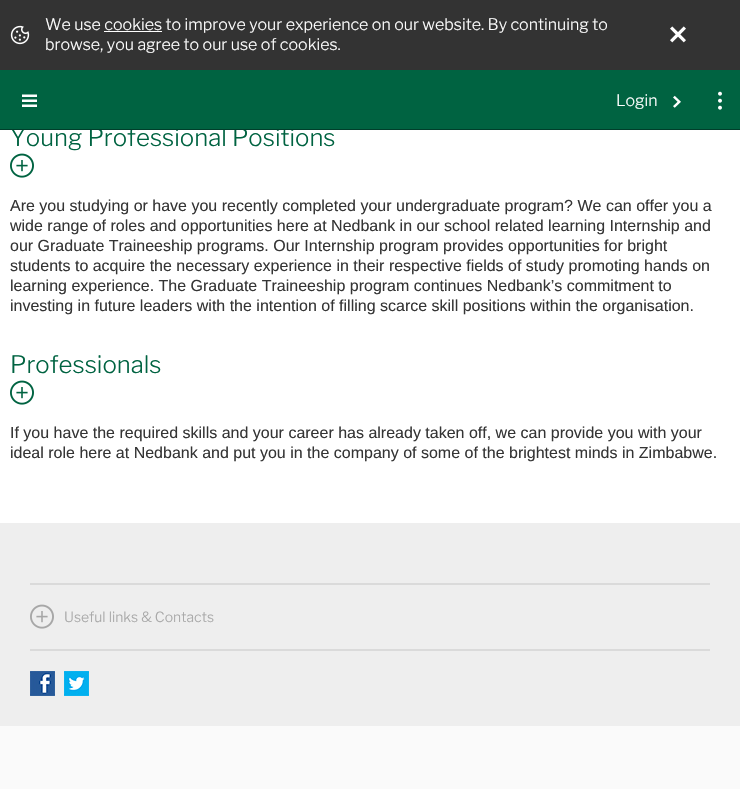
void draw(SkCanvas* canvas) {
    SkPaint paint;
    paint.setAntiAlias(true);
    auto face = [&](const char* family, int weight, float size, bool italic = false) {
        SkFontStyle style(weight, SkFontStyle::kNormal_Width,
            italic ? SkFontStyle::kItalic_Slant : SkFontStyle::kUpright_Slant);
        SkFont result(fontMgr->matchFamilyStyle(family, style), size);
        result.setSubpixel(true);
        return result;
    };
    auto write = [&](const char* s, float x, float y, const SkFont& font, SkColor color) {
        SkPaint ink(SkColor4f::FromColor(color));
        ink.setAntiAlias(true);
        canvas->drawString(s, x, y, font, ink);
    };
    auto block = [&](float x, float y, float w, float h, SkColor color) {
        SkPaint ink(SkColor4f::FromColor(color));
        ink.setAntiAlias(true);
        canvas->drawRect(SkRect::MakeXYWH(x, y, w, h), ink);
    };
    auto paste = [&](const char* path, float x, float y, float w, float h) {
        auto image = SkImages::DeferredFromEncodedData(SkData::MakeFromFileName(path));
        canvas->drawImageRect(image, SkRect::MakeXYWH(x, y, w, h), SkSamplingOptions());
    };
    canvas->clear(SK_ColorWHITE);
    block(0, 70, 740, 59, SkColorSetRGB(0, 99, 65));
    auto kFont1 = face("Libre Franklin", 300, 24);
    write("Young Professional Positions", 10, 146, kFont1, SkColorSetRGB(0, 99, 65));
    block(0, 129, 740, 1, SkColorSetRGB(0, 62, 43));
    block(0, 0, 740, 70, SkColorSetRGB(51, 51, 51));
    paste("pic1.png", 10, 25, 20, 20);
    auto kFont2 = face("Libre Franklin", 300, 16);
    write("We use cookies to improve your experience on our website. By continuing to", 45, 30, kFont2, SK_ColorWHITE);
    block(104, 31, 58, 1, SK_ColorWHITE);
    write("browse, you agree to our use of cookies.", 45, 50, kFont2, SK_ColorWHITE);
    paste("pic2.png", 670, 26, 16, 17);
    paste("pic3.png", 22, 94, 15, 13);
    write("Login", 616, 106, kFont2, SK_ColorWHITE);
    paste("pic4.png", 673, 95, 8, 13);
    paste("pic5.png", 718, 91, 4, 19);
    paste("pic6.png", 10, 153, 24, 25);
    auto kFont3 = face("Liberation Sans", 400, 16);
    write("Are you studying or have you recently completed your undergraduate program? We can offer you a", 10, 211, kFont3, SkColorSetRGB(53, 53, 53));
    write("wide range of roles and opportunities here at Nedbank in our school related learning Internship and", 10, 231, kFont3, SkColorSetRGB(53, 53, 53));
    write("our Graduate Traineeship programs. Our Internship program provides opportunities for bright", 10, 251, kFont3, SkColorSetRGB(53, 53, 53));
    write("students to acquire the necessary experience in their respective fields of study promoting hands on", 10, 271, kFont3, SkColorSetRGB(53, 53, 53));
    write("learning experience. The Graduate Traineeship program continues Nedbank’s commitment to", 10, 291, kFont3, SkColorSetRGB(53, 53, 53));
    write("investing in future leaders with the intention of filling scarce skill positions within the organisation.", 10, 311, kFont3, SkColorSetRGB(53, 53, 53));
    write("Professionals", 10, 373, kFont1, SkColorSetRGB(0, 99, 65));
    paste("pic6.png", 10, 380, 24, 25);
    write("If you have the required skills and your career has already taken off, we can provide you with your", 10, 438, kFont3, SkColorSetRGB(53, 53, 53));
    write("ideal role here at Nedbank and put you in the company of some of the brightest minds in Zimbabwe.", 10, 458, kFont3, SkColorSetRGB(53, 53, 53));
    block(0, 523, 740, 203, SkColorSetRGB(238, 238, 238));
    block(30, 583, 680, 2, SkColorSetRGB(218, 218, 218));
    paste("pic7.png", 30, 604, 24, 25);
    auto kFont4 = face("Libre Franklin", 300, 14);
    write("Useful links & Contacts", 64, 622, kFont4, SkColorSetRGB(167, 167, 167));
    block(30, 649, 680, 2, SkColorSetRGB(218, 218, 218));
    paste("pic8.png", 30, 671, 25, 25);
    paste("pic9.png", 64, 671, 25, 25);
    block(0, 726, 740, 63, SkColorSetRGB(250, 250, 250));
}
